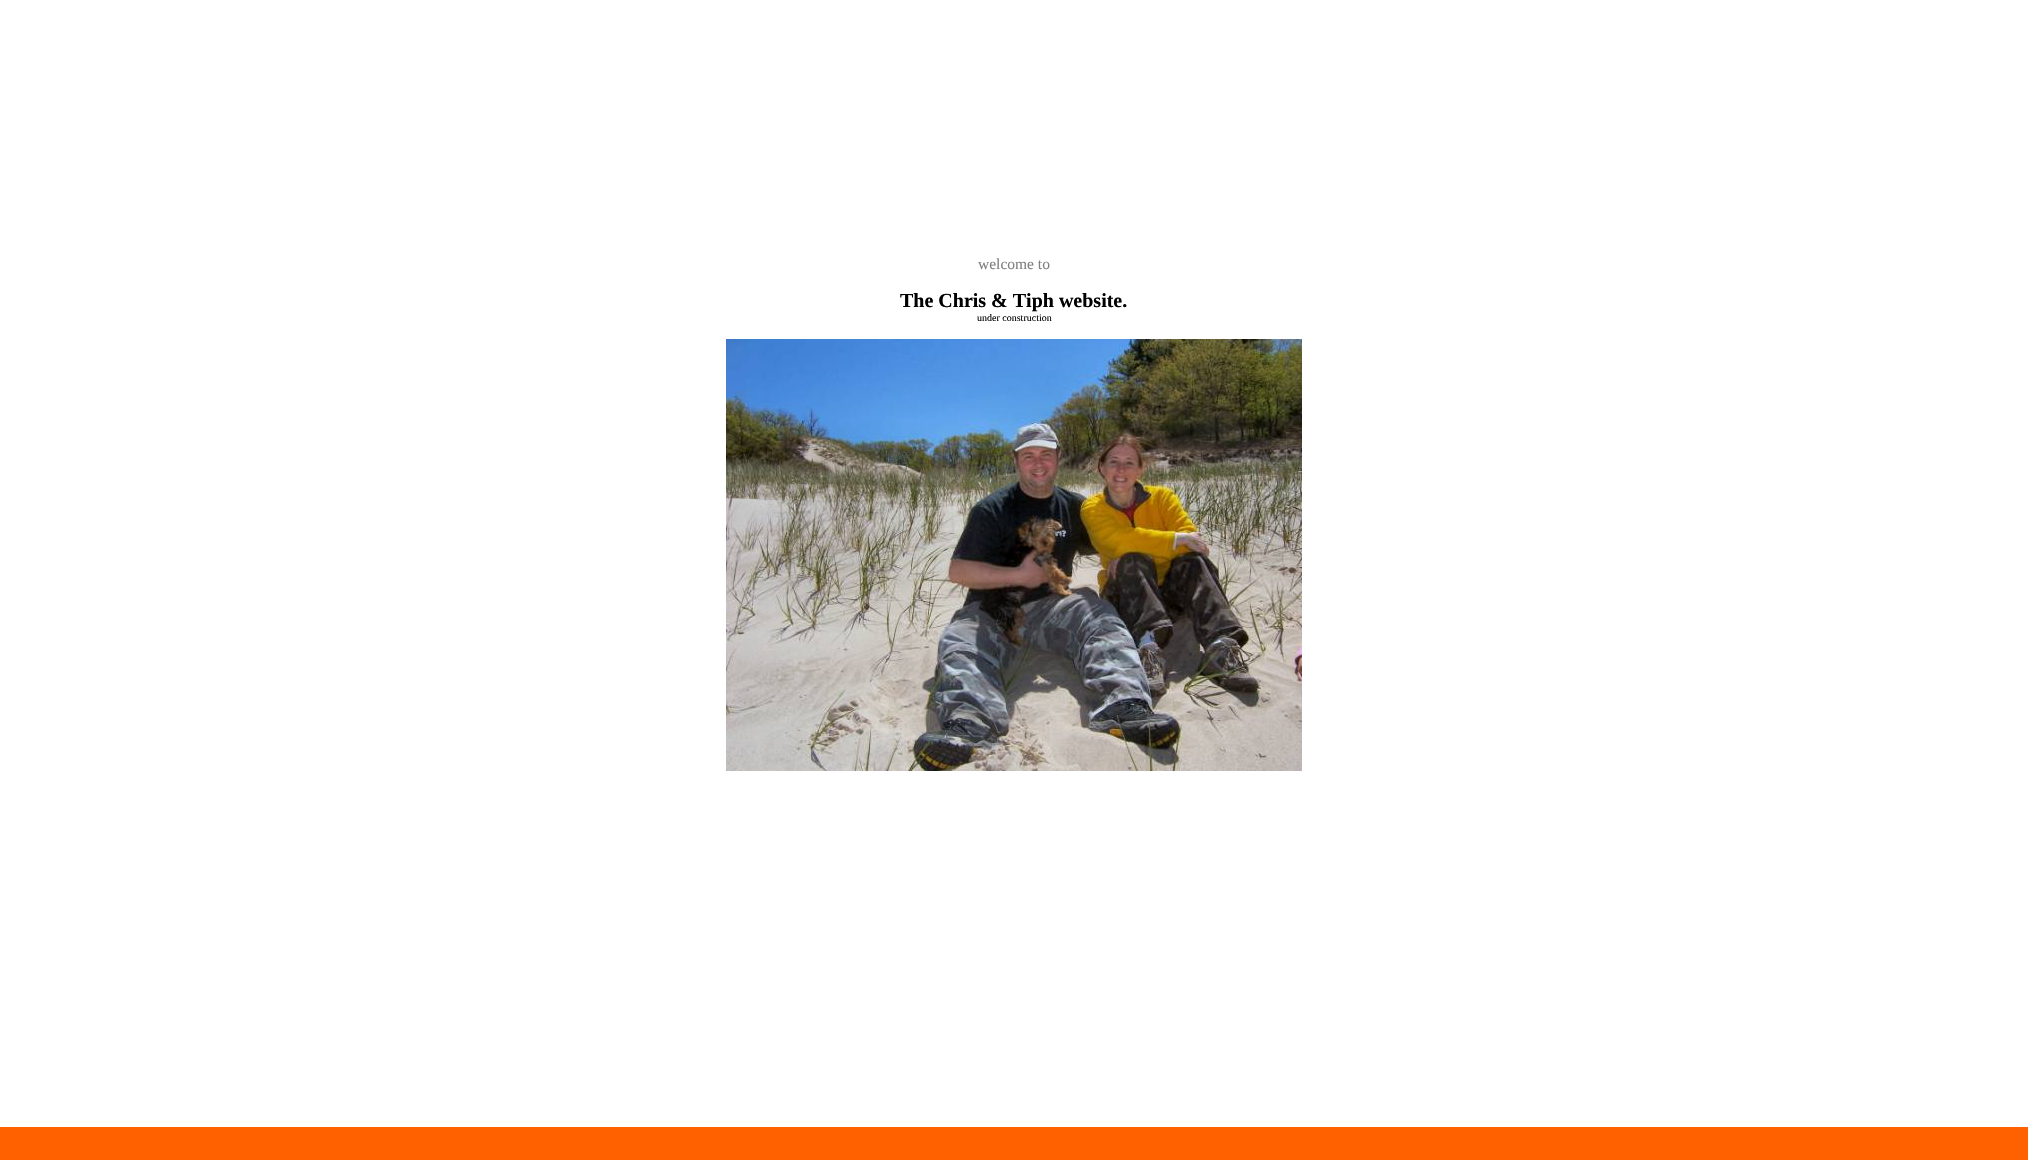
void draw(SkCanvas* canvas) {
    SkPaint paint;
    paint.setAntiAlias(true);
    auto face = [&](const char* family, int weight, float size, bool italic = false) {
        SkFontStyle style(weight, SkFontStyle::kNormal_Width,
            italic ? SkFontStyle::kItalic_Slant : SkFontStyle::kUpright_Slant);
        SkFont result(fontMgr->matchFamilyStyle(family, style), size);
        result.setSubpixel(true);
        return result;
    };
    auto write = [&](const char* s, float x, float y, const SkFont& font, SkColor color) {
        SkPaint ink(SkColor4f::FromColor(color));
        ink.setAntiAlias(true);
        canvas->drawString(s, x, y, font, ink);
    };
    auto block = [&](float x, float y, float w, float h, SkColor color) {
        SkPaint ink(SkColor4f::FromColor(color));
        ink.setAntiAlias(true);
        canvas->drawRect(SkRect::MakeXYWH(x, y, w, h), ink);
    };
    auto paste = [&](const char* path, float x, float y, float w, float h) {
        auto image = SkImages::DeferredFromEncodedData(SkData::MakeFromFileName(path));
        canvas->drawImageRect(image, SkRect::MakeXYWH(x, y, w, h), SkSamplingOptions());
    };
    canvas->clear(SK_ColorWHITE);
    auto kFont1 = face("Liberation Serif", 400, 15.5f);
    write("welcome to", 978, 269, kFont1, SkColorSetRGB(128, 128, 128));
    auto kFont2 = face("Liberation Serif", 700, 20);
    write("The Chris & Tiph website.", 900, 307, kFont2, SK_ColorBLACK);
    auto kFont3 = face("Liberation Serif", 400, 10);
    write("under construction", 977, 321, kFont3, SK_ColorBLACK);
    paste("pic1.png", 726, 339, 576, 432);
    block(0, 1127, 2028, 33, SkColorSetRGB(255, 96, 0));
}
